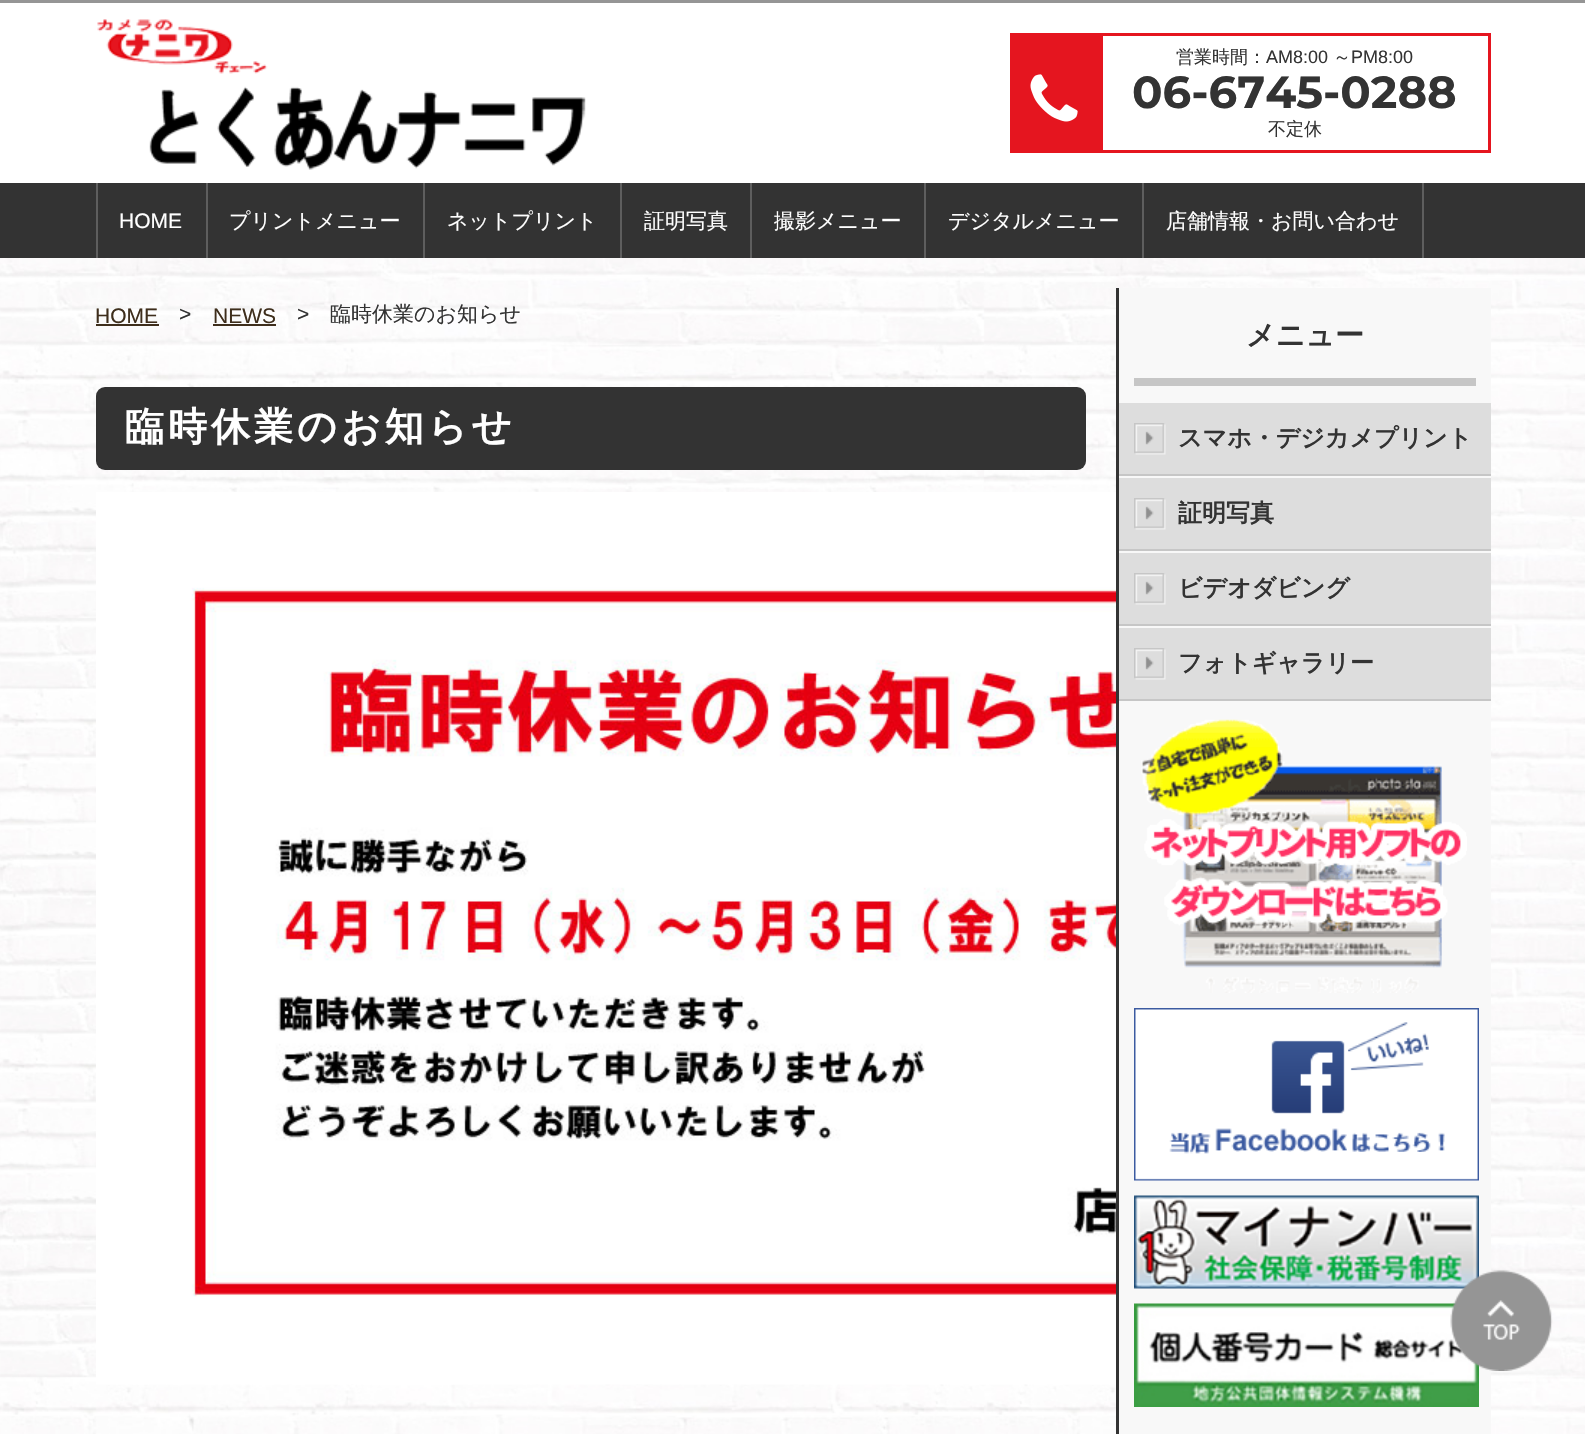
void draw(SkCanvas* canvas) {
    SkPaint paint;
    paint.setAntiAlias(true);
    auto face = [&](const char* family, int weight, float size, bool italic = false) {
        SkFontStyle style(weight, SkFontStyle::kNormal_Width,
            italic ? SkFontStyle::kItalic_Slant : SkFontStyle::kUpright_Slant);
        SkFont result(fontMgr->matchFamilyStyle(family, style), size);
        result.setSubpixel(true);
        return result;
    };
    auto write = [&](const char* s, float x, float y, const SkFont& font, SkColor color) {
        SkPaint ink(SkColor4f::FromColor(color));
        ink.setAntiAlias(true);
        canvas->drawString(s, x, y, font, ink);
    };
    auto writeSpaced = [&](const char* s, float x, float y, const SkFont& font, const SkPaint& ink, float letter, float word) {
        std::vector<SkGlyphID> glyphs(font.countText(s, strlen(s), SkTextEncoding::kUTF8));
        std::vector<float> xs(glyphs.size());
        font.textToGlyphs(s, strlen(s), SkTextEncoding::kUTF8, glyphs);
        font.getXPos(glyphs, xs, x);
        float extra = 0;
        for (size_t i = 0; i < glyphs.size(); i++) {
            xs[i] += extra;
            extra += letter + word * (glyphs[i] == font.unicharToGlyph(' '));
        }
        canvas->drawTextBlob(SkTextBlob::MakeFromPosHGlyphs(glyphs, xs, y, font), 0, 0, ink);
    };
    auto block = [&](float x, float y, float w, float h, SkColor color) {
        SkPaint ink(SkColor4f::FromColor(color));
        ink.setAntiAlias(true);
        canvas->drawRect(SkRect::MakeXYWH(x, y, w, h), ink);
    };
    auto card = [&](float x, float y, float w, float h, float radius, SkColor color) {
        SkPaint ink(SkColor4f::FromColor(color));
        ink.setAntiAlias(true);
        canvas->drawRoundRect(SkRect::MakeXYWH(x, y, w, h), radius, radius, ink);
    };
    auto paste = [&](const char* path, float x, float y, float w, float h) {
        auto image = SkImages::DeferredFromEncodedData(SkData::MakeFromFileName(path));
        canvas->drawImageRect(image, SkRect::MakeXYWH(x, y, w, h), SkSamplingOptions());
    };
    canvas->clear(SK_ColorWHITE);
    paste("pic1.png", 0, 258, 1585, 1176);
    block(0, 0, 1585, 3, SkColorSetRGB(149, 149, 149));
    paste("pic2.png", 97, 19, 489, 151);
    block(1010, 33, 90, 120, SkColorSetRGB(229, 21, 31));
    paste("pic3.png", 1030, 74, 48, 48);
    paint.setStyle(SkPaint::kStroke_Style);
    paint.setStrokeWidth(3);
    paint.setColor(SkColorSetRGB(229, 21, 31));
    canvas->drawRect(SkRect::MakeXYWH(1101.5f, 34.5f, 388, 117), paint);
    auto kFont1 = face("WenQuanYi Zen Hei", 500, 18);
    write("営業時間：", 1176, 63, kFont1, SkColorSetRGB(51, 51, 51));
    auto kFont2 = face("Liberation Sans", 400, 18);
    write("AM8:00", 1266, 63, kFont2, SkColorSetRGB(51, 51, 51));
    write("～", 1333, 63, kFont1, SkColorSetRGB(51, 51, 51));
    write("PM8:00", 1351, 63, kFont2, SkColorSetRGB(51, 51, 51));
    auto kFont3 = face("Montserrat", 700, 45);
    write("06-6745-0288", 1132, 108, kFont3, SkColorSetRGB(51, 51, 51));
    write("不定休", 1268, 135, kFont1, SkColorSetRGB(51, 51, 51));
    block(0, 183, 1585, 75, SkColorSetRGB(51, 51, 51));
    block(96, 183, 2, 75, SkColorSetRGB(94, 94, 94));
    block(206, 183, 2, 75, SkColorSetRGB(94, 94, 94));
    auto kFont4 = face("Liberation Sans", 400, 21);
    write("HOME", 119, 228, kFont4, SK_ColorWHITE);
    block(423, 183, 2, 75, SkColorSetRGB(94, 94, 94));
    auto kFont5 = face("WenQuanYi Zen Hei", 500, 21);
    write("プリントメニュー", 229, 228, kFont5, SK_ColorWHITE);
    block(620, 183, 2, 75, SkColorSetRGB(94, 94, 94));
    write("ネットプリント", 447, 228, kFont5, SK_ColorWHITE);
    block(750, 183, 2, 75, SkColorSetRGB(94, 94, 94));
    write("証明写真", 644, 228, kFont5, SK_ColorWHITE);
    block(924, 183, 2, 75, SkColorSetRGB(94, 94, 94));
    write("撮影メニュー", 774, 228, kFont5, SK_ColorWHITE);
    block(1142, 183, 2, 75, SkColorSetRGB(94, 94, 94));
    write("デジタルメニュー", 948, 228, kFont5, SK_ColorWHITE);
    block(1422, 183, 2, 75, SkColorSetRGB(94, 94, 94));
    write("店舗情報・お問い合わせ", 1166, 228, kFont5, SK_ColorWHITE);
    write("HOME", 95, 323, kFont4, SkColorSetRGB(62, 46, 28));
    block(96, 324, 63, 2, SkColorSetRGB(62, 46, 28));
    write(">", 179, 321, kFont4, SkColorSetRGB(51, 51, 51));
    write("NEWS", 213, 323, kFont4, SkColorSetRGB(62, 46, 28));
    block(213, 324, 63, 2, SkColorSetRGB(62, 46, 28));
    write(">", 297, 321, kFont4, SkColorSetRGB(51, 51, 51));
    write("臨時休業のお知らせ", 330, 321, kFont5, SkColorSetRGB(51, 51, 51));
    card(96, 387, 990, 83, 9, SkColorSetRGB(51, 51, 51));
    auto kFont6 = face("WenQuanYi Zen Hei", 700, 39);
    paint.setStyle(SkPaint::kFill_Style);
    paint.setColor(SK_ColorWHITE);
    writeSpaced("臨時休業のお知らせ", 125, 440, kFont6, paint, 4, 0);
    paste("pic4.png", 96, 492, 1020, 893);
    block(1119, 288, 372, 1146, SkColorSetRGB(248, 248, 248));
    block(1116, 288, 3, 1146, SkColorSetRGB(51, 51, 51));
    block(1134, 378, 342, 8, SkColorSetRGB(198, 198, 198));
    auto kFont7 = face("WenQuanYi Zen Hei", 700, 29);
    write("メニュー", 1246, 345, kFont7, SkColorSetRGB(51, 51, 51));
    block(1119, 403, 372, 71, SkColorSetRGB(221, 221, 221));
    block(1119, 474, 372, 2, SkColorSetRGB(198, 198, 198));
    paste("pic5.png", 1134, 423, 32, 32);
    auto kFont8 = face("WenQuanYi Zen Hei", 700, 24);
    write("スマホ・デジカメプリント", 1178, 446, kFont8, SkColorSetRGB(51, 51, 51));
    block(1119, 478, 372, 71, SkColorSetRGB(221, 221, 221));
    block(1119, 549, 372, 2, SkColorSetRGB(198, 198, 198));
    paste("pic5.png", 1134, 498, 32, 32);
    write("証明写真", 1178, 521, kFont8, SkColorSetRGB(51, 51, 51));
    block(1119, 553, 372, 71, SkColorSetRGB(221, 221, 221));
    block(1119, 624, 372, 2, SkColorSetRGB(198, 198, 198));
    paste("pic5.png", 1134, 573, 32, 32);
    write("ビデオダビング", 1178, 596, kFont8, SkColorSetRGB(51, 51, 51));
    block(1119, 628, 372, 71, SkColorSetRGB(221, 221, 221));
    block(1119, 699, 372, 2, SkColorSetRGB(198, 198, 198));
    paste("pic5.png", 1134, 648, 32, 32);
    write("フォトギャラリー", 1178, 671, kFont8, SkColorSetRGB(51, 51, 51));
    paste("pic6.png", 1141, 719, 326, 274);
    paste("pic7.png", 1134, 1008, 345, 173);
    paste("pic8.png", 1134, 1195, 345, 94);
    paste("pic9.png", 1134, 1303, 345, 104);
    paste("pic10.png", 1450, 1270, 103, 101);
}
